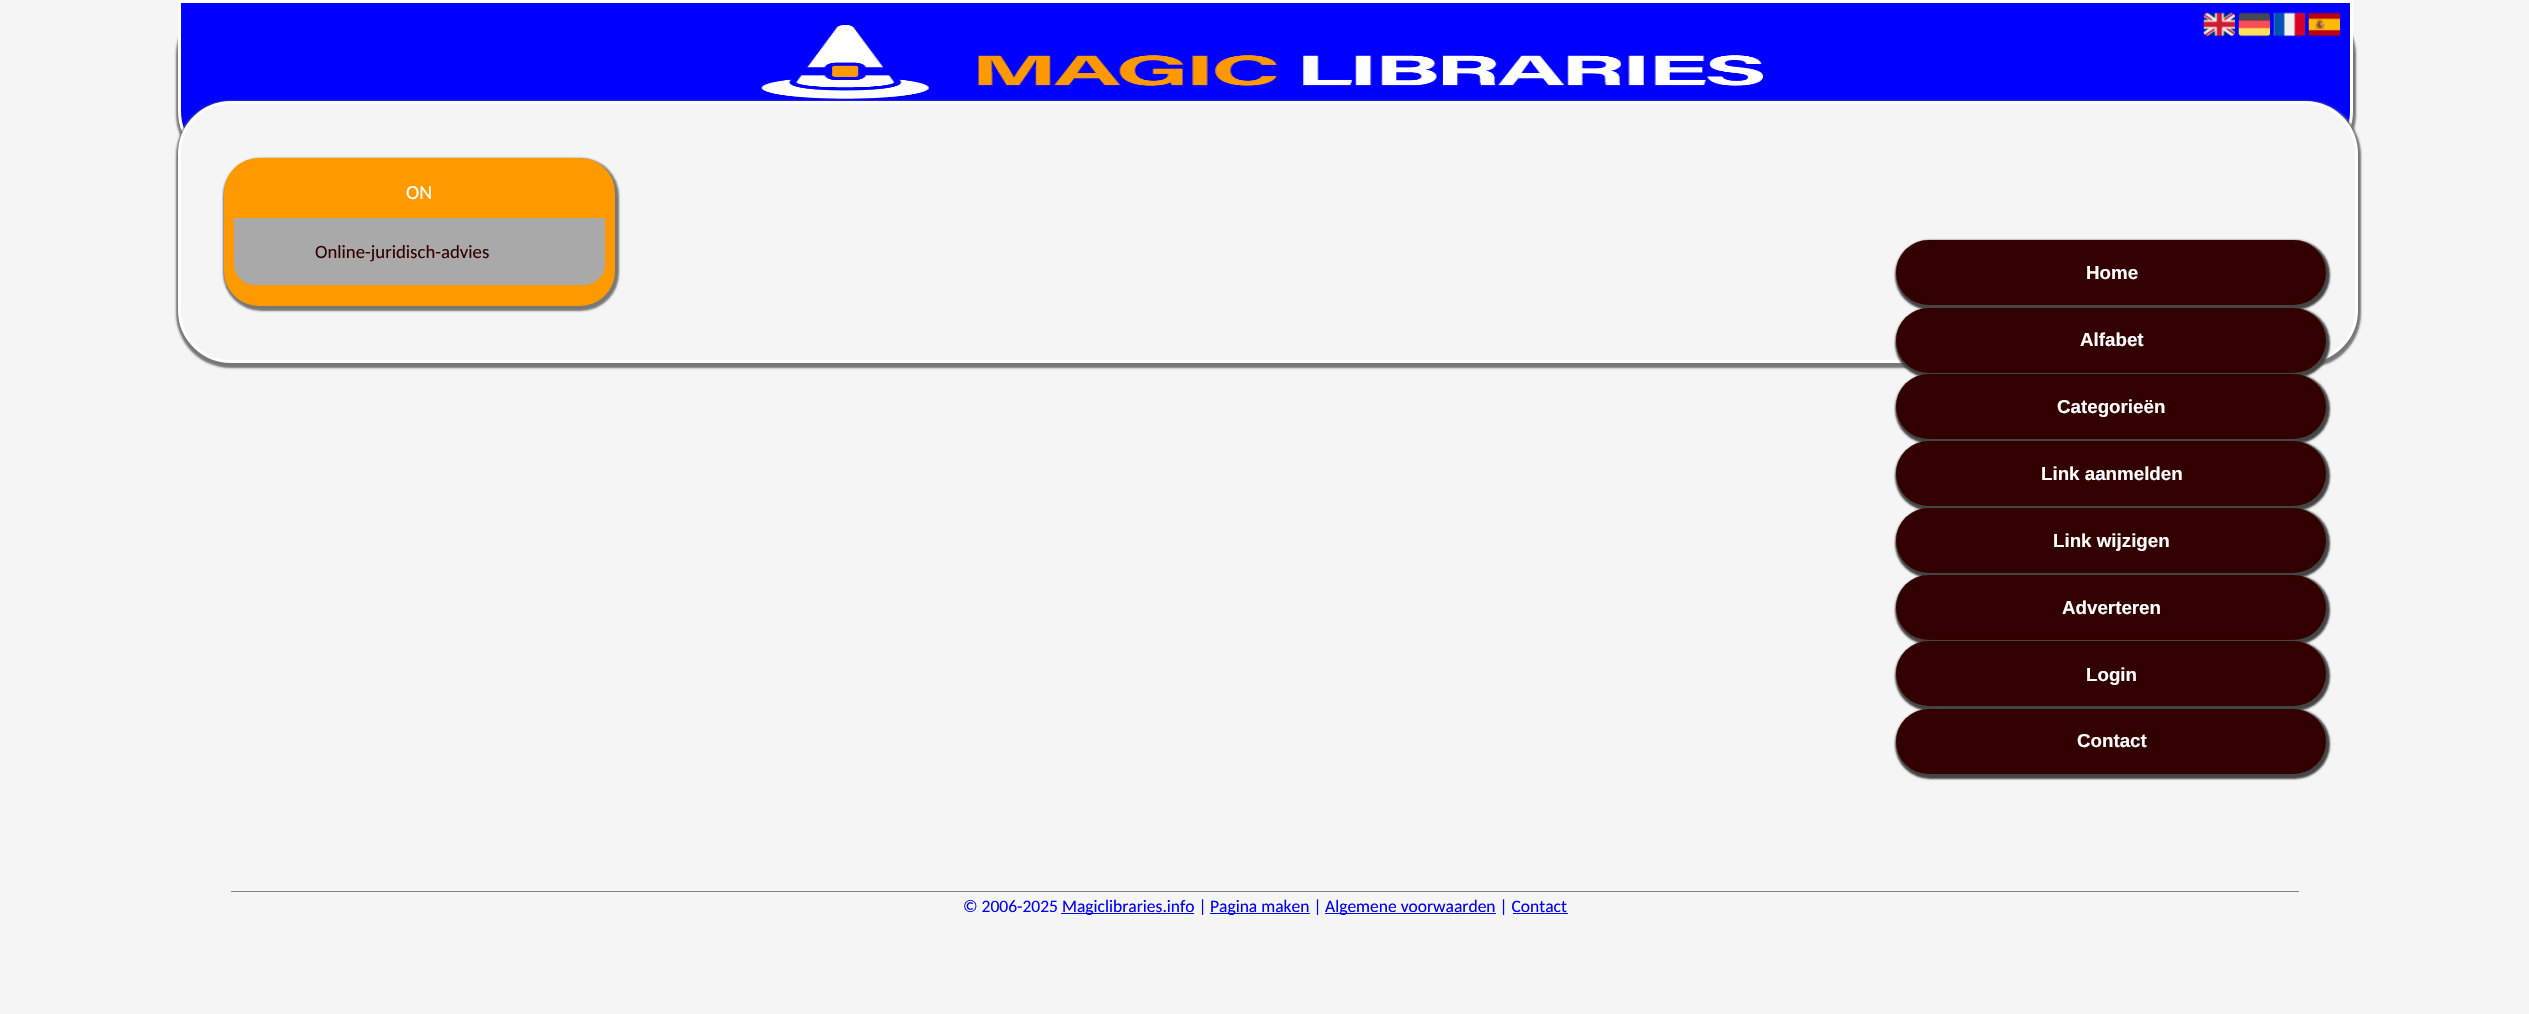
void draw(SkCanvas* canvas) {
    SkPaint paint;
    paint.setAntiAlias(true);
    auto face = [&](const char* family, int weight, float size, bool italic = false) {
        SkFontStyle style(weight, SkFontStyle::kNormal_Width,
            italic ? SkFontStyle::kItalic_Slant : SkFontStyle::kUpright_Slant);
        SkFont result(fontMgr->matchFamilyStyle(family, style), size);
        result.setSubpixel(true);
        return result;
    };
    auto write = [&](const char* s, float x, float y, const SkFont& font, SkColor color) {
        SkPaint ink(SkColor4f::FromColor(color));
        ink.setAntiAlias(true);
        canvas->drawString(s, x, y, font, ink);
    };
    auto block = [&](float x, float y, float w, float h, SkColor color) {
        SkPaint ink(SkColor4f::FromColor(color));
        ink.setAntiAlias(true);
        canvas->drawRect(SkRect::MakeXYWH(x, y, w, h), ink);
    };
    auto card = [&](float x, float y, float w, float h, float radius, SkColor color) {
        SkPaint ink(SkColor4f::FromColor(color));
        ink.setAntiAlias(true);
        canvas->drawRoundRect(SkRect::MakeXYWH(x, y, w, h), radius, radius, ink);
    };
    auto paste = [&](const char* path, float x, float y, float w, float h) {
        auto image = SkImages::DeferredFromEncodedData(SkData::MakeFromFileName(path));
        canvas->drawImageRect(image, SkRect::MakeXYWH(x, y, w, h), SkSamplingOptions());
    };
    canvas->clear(SkColorSetRGB(245, 245, 245));
    paint.setColor(SkColorSetRGB(119, 119, 119));
    paint.setMaskFilter(SkMaskFilter::MakeBlur(kNormal_SkBlurStyle, 1));
    canvas->drawRoundRect(SkRect::MakeXYWH(176, 0, 2180, 169), 55, 55, paint);
    paint.setMaskFilter(nullptr);
    paint.setColor(SkColorSetRGB(0, 0, 255));
    canvas->drawPath(SkPathBuilder().moveTo(179.5f, 1.5f).lineTo(2351.5f, 1.5f).lineTo(2351.5f, 111).cubicTo(2351.5f, 139.5f, 2328.5f, 162.5f, 2300, 162.5f).lineTo(231, 162.5f).cubicTo(202.5f, 162.5f, 179.5f, 139.5f, 179.5f, 111).close().detach(), paint);
    paint.setStyle(SkPaint::kStroke_Style);
    paint.setStrokeWidth(3);
    paint.setColor(SK_ColorWHITE);
    canvas->drawPath(SkPathBuilder().moveTo(179.5f, 1.5f).lineTo(2351.5f, 1.5f).lineTo(2351.5f, 111).cubicTo(2351.5f, 139.5f, 2328.5f, 162.5f, 2300, 162.5f).lineTo(231, 162.5f).cubicTo(202.5f, 162.5f, 179.5f, 139.5f, 179.5f, 111).close().detach(), paint);
    paint.setStyle(SkPaint::kFill_Style);
    paint.setColor(SkColorSetRGB(119, 119, 119));
    paint.setMaskFilter(SkMaskFilter::MakeBlur(kNormal_SkBlurStyle, 1));
    canvas->drawRoundRect(SkRect::MakeXYWH(176, 101, 2185, 267), 55, 55, paint);
    paint.setMaskFilter(nullptr);
    paint.setColor(SkColorSetRGB(245, 245, 245));
    canvas->drawRoundRect(SkRect::MakeXYWH(179.5f, 102.5f, 2177, 259), 51.5f, 51.5f, paint);
    paint.setStyle(SkPaint::kStroke_Style);
    paint.setColor(SK_ColorWHITE);
    canvas->drawRoundRect(SkRect::MakeXYWH(179.5f, 102.5f, 2177, 259), 51.5f, 51.5f, paint);
    paint.setStyle(SkPaint::kFill_Style);
    paint.setColor(SkColorSetRGB(119, 119, 119));
    paint.setMaskFilter(SkMaskFilter::MakeBlur(kNormal_SkBlurStyle, 1));
    canvas->drawRoundRect(SkRect::MakeXYWH(223, 158, 396, 153), 38, 38, paint);
    paint.setMaskFilter(nullptr);
    paint.setColor(SkColorSetRGB(255, 153, 0));
    canvas->drawRoundRect(SkRect::MakeXYWH(229, 163, 381, 138), 30, 30, paint);
    paint.setStyle(SkPaint::kStroke_Style);
    paint.setStrokeWidth(10);
    canvas->drawRoundRect(SkRect::MakeXYWH(229, 163, 381, 138), 30, 30, paint);
    auto kFont1 = face("Carlito", 400, 20);
    write("ON", 406, 199, kFont1, SK_ColorWHITE);
    paint.setStyle(SkPaint::kFill_Style);
    paint.setColor(SkColorSetRGB(169, 169, 169));
    canvas->drawPath(SkPathBuilder().moveTo(234, 218).lineTo(605, 218).lineTo(605, 264).cubicTo(605, 275.5f, 595.5f, 285, 584, 285).lineTo(255, 285).cubicTo(243.5f, 285, 234, 275.5f, 234, 264).close().detach(), paint);
    auto kFont2 = face("Carlito", 400, 18.75f);
    write("Online-juridisch-advies", 315, 258, kFont2, SkColorSetRGB(51, 0, 0));
    paste("pic1.png", 761, 25, 1003, 74);
    paste("pic2.png", 2203, 12, 32, 25);
    paste("pic3.png", 2238, 12, 32, 25);
    paste("pic4.png", 2273, 12, 32, 25);
    paste("pic5.png", 2308, 12, 32, 25);
    paint.setColor(SkColorSetRGB(68, 68, 68));
    paint.setMaskFilter(SkMaskFilter::MakeBlur(kNormal_SkBlurStyle, 1));
    canvas->drawRoundRect(SkRect::MakeXYWH(1895, 240, 435, 70), 35, 35, paint);
    paint.setMaskFilter(nullptr);
    card(1896, 240, 430, 65, 32.5f, SkColorSetRGB(51, 0, 0));
    auto kFont3 = face("Liberation Sans", 700, 18.75f);
    write("Home", 2086, 279, kFont3, SK_ColorWHITE);
    paint.setMaskFilter(SkMaskFilter::MakeBlur(kNormal_SkBlurStyle, 1));
    canvas->drawRoundRect(SkRect::MakeXYWH(1895, 308, 435, 70), 35, 35, paint);
    paint.setMaskFilter(nullptr);
    card(1896, 308, 430, 65, 32.5f, SkColorSetRGB(51, 0, 0));
    write("Alfabet", 2080, 346, kFont3, SK_ColorWHITE);
    paint.setMaskFilter(SkMaskFilter::MakeBlur(kNormal_SkBlurStyle, 1));
    canvas->drawRoundRect(SkRect::MakeXYWH(1895, 374, 435, 70), 35, 35, paint);
    paint.setMaskFilter(nullptr);
    card(1896, 374, 430, 65, 32.5f, SkColorSetRGB(51, 0, 0));
    write("Categorieën", 2057, 413, kFont3, SK_ColorWHITE);
    paint.setMaskFilter(SkMaskFilter::MakeBlur(kNormal_SkBlurStyle, 1));
    canvas->drawRoundRect(SkRect::MakeXYWH(1895, 441, 435, 70), 35, 35, paint);
    paint.setMaskFilter(nullptr);
    card(1896, 441, 430, 65, 32.5f, SkColorSetRGB(51, 0, 0));
    write("Link aanmelden", 2041, 480, kFont3, SK_ColorWHITE);
    paint.setMaskFilter(SkMaskFilter::MakeBlur(kNormal_SkBlurStyle, 1));
    canvas->drawRoundRect(SkRect::MakeXYWH(1895, 508, 435, 70), 35, 35, paint);
    paint.setMaskFilter(nullptr);
    card(1896, 508, 430, 65, 32.5f, SkColorSetRGB(51, 0, 0));
    write("Link wijzigen", 2053, 547, kFont3, SK_ColorWHITE);
    paint.setMaskFilter(SkMaskFilter::MakeBlur(kNormal_SkBlurStyle, 1));
    canvas->drawRoundRect(SkRect::MakeXYWH(1895, 575, 435, 70), 35, 35, paint);
    paint.setMaskFilter(nullptr);
    card(1896, 575, 430, 65, 32.5f, SkColorSetRGB(51, 0, 0));
    write("Adverteren", 2062, 614, kFont3, SK_ColorWHITE);
    paint.setMaskFilter(SkMaskFilter::MakeBlur(kNormal_SkBlurStyle, 1));
    canvas->drawRoundRect(SkRect::MakeXYWH(1895, 641, 435, 70), 35, 35, paint);
    paint.setMaskFilter(nullptr);
    card(1896, 641, 430, 65, 32.5f, SkColorSetRGB(51, 0, 0));
    write("Login", 2086, 681, kFont3, SK_ColorWHITE);
    paint.setMaskFilter(SkMaskFilter::MakeBlur(kNormal_SkBlurStyle, 1));
    canvas->drawRoundRect(SkRect::MakeXYWH(1895, 709, 435, 70), 35, 35, paint);
    paint.setMaskFilter(nullptr);
    card(1896, 709, 430, 65, 32.5f, SkColorSetRGB(51, 0, 0));
    write("Contact", 2077, 747, kFont3, SK_ColorWHITE);
    block(231, 891, 2068, 1, SkColorSetRGB(128, 128, 128));
    auto kFont4 = face("Carlito", 400, 17.5f);
    write("© 2006-2025", 963, 912, kFont4, SkColorSetRGB(0, 0, 255));
    block(1061, 913, 133, 1, SkColorSetRGB(0, 0, 255));
    write("Magiclibraries.info |", 1062, 912, kFont4, SkColorSetRGB(0, 0, 255));
    block(1210, 913, 100, 1, SkColorSetRGB(0, 0, 255));
    write("Pagina maken |", 1210, 912, kFont4, SkColorSetRGB(0, 0, 255));
    block(1325, 913, 171, 1, SkColorSetRGB(0, 0, 255));
    write("Algemene voorwaarden | Contact", 1325, 912, kFont4, SkColorSetRGB(0, 0, 255));
    block(1513, 913, 55, 1, SkColorSetRGB(0, 0, 255));
}
